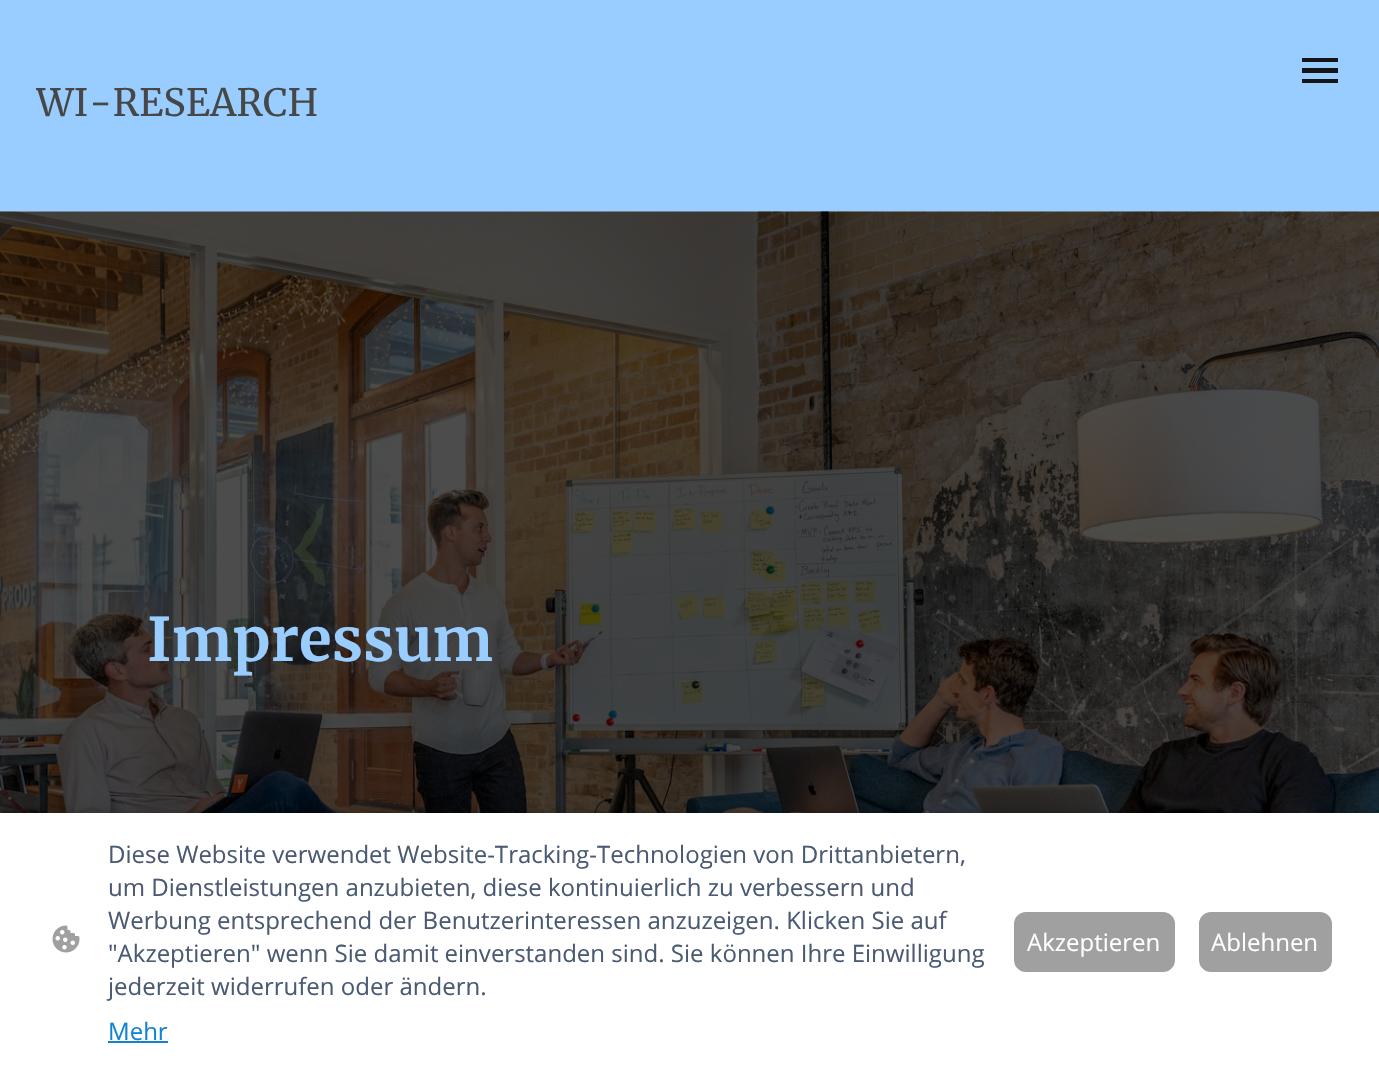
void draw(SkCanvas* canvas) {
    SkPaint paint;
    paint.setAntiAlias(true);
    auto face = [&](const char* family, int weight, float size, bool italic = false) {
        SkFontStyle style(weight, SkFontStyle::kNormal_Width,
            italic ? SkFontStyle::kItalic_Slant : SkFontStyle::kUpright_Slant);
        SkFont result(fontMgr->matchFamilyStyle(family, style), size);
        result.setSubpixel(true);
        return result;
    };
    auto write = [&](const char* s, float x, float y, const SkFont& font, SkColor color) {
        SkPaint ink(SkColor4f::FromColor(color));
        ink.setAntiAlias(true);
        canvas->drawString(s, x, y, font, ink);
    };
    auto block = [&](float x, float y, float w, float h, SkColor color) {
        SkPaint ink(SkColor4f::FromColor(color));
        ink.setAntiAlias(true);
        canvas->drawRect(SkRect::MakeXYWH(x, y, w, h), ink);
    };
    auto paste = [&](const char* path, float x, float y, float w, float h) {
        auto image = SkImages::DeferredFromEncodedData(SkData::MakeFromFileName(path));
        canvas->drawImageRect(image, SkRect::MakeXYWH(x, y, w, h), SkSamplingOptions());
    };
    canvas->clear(SkColorSetRGB(153, 204, 255));
    block(1302, 58, 36, 4, SkColorSetRGB(21, 21, 21));
    block(1302, 68, 36, 5, SkColorSetRGB(21, 21, 21));
    block(1302, 79, 36, 4, SkColorSetRGB(21, 21, 21));
    paste("pic1.png", 36, 87, 281, 30);
    paste("pic2.png", 0, 211, 1379, 602);
    auto kFont1 = face("Merriweather", 700, 60);
    write("Impressum", 147, 661, kFont1, SkColorSetRGB(153, 204, 255));
    paint.setColor(SkColorSetARGB(161, 0, 0, 0));
    paint.setMaskFilter(SkMaskFilter::MakeBlur(kNormal_SkBlurStyle, 6));
    canvas->drawRect(SkRect::MakeXYWH(9, 818, 1362, 240), paint);
    paint.setMaskFilter(nullptr);
    block(0, 813, 1379, 257, SK_ColorWHITE);
    paste("pic3.png", 52, 925, 28, 28);
    auto kFont2 = face("Open Sans", 400, 24);
    write("Diese Website verwendet Website-Tracking-Technologien von Drittanbietern,", 108, 863, kFont2, SkColorSetRGB(74, 90, 115));
    write("um Dienstleistungen anzubieten, diese kontinuierlich zu verbessern und", 108, 896, kFont2, SkColorSetRGB(74, 90, 115));
    write("Werbung entsprechend der Benutzerinteressen anzuzeigen. Klicken Sie auf", 108, 929, kFont2, SkColorSetRGB(74, 90, 115));
    write("\"Akzeptieren\" wenn Sie damit einverstanden sind. Sie können Ihre Einwilligung", 108, 962, kFont2, SkColorSetRGB(74, 90, 115));
    write("jederzeit widerrufen oder ändern.", 108, 995, kFont2, SkColorSetRGB(74, 90, 115));
    write("Mehr", 108, 1040, kFont2, SkColorSetRGB(17, 131, 209));
    block(108, 1041, 60, 2, SkColorSetRGB(17, 131, 209));
    paint.setColor(SkColorSetRGB(160, 160, 160));
    canvas->drawRoundRect(SkRect::MakeXYWH(1015, 913, 159, 58), 11, 11, paint);
    paint.setStyle(SkPaint::kStroke_Style);
    paint.setStrokeWidth(2);
    canvas->drawRoundRect(SkRect::MakeXYWH(1015, 913, 159, 58), 11, 11, paint);
    write("Akzeptieren", 1027, 951, kFont2, SK_ColorWHITE);
    paint.setStyle(SkPaint::kFill_Style);
    canvas->drawRoundRect(SkRect::MakeXYWH(1200, 913, 131, 58), 11, 11, paint);
    paint.setStyle(SkPaint::kStroke_Style);
    canvas->drawRoundRect(SkRect::MakeXYWH(1200, 913, 131, 58), 11, 11, paint);
    write("Ablehnen", 1211, 951, kFont2, SK_ColorWHITE);
}
